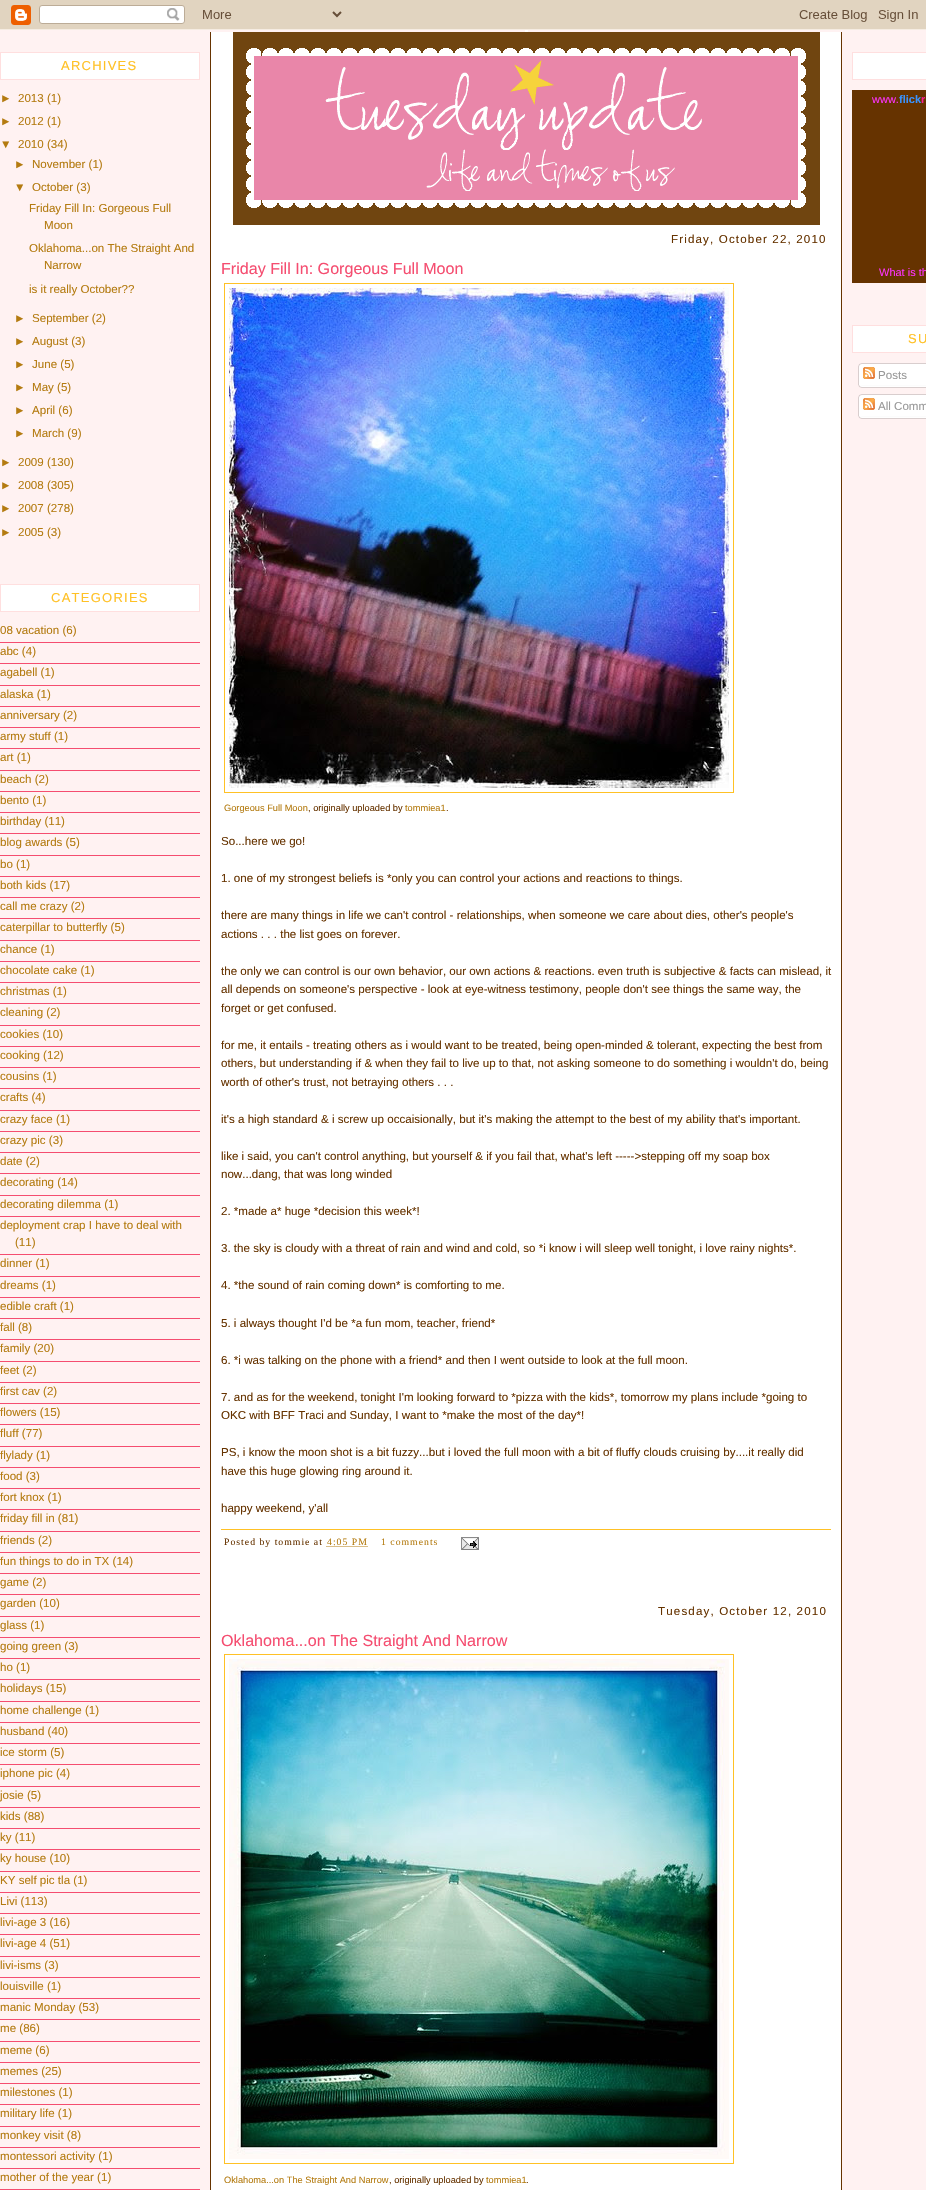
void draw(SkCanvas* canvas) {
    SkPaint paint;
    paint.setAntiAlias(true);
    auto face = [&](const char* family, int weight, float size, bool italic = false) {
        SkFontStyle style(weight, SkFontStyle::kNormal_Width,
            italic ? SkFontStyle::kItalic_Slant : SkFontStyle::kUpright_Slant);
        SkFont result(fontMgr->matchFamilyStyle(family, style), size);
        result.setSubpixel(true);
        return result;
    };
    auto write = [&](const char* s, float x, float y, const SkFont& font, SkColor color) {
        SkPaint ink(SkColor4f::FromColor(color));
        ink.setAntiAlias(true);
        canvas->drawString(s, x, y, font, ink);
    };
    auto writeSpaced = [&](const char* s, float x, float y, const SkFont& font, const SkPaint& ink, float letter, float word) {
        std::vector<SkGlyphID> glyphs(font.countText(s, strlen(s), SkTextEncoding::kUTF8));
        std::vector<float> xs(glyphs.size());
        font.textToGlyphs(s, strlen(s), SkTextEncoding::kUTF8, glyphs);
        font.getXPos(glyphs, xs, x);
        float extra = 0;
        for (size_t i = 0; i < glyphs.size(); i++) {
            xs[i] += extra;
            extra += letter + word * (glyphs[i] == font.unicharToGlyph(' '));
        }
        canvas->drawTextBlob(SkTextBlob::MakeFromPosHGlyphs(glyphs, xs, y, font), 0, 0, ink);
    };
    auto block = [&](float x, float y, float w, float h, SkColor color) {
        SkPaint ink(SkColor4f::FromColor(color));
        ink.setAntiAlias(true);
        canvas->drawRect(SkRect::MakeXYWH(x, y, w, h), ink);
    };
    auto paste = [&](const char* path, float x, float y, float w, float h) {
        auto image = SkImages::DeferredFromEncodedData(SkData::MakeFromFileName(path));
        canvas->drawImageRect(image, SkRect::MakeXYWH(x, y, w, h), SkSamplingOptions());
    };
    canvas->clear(SkColorSetRGB(255, 242, 242));
    paste("pic1.png", 0, 0, 926, 30);
    block(525, 30, 3, 2, SK_ColorWHITE);
    paint.setColor(SK_ColorWHITE);
    canvas->drawRect(SkRect::MakeXYWH(0.5f, 52.5f, 199, 27), paint);
    paint.setStyle(SkPaint::kStroke_Style);
    paint.setStrokeWidth(1);
    paint.setColor(SkColorSetRGB(255, 223, 223));
    canvas->drawRect(SkRect::MakeXYWH(0.5f, 52.5f, 199, 27), paint);
    auto kFont1 = face("Liberation Sans", 400, 13);
    paint.setStyle(SkPaint::kFill_Style);
    paint.setColor(SkColorSetRGB(255, 193, 37));
    writeSpaced("ARCHIVES", 61, 70, kFont1, paint, 1.25f, 0);
    auto kFont2 = face("Liberation Sans", 400, 11.57f);
    write("►", 0, 102, kFont2, SkColorSetRGB(180, 123, 16));
    write("2013 (1)", 18, 102, kFont2, SkColorSetRGB(180, 123, 16));
    write("►", 0, 125, kFont2, SkColorSetRGB(180, 123, 16));
    write("2012 (1)", 18, 125, kFont2, SkColorSetRGB(180, 123, 16));
    write("▼", 0, 148, kFont2, SkColorSetRGB(180, 123, 16));
    write("2010 (34)", 18, 148, kFont2, SkColorSetRGB(180, 123, 16));
    write("►", 14, 168, kFont2, SkColorSetRGB(180, 123, 16));
    write("November (1)", 32, 168, kFont2, SkColorSetRGB(180, 123, 16));
    write("▼", 14, 191, kFont2, SkColorSetRGB(180, 123, 16));
    write("October (3)", 32, 191, kFont2, SkColorSetRGB(180, 123, 16));
    write("Friday Fill In: Gorgeous Full", 29, 212, kFont2, SkColorSetRGB(180, 123, 16));
    write("Moon", 44, 229, kFont2, SkColorSetRGB(180, 123, 16));
    write("Oklahoma...on The Straight And", 29, 252, kFont2, SkColorSetRGB(180, 123, 16));
    write("Narrow", 44, 269, kFont2, SkColorSetRGB(180, 123, 16));
    write("is it really October?\077", 29, 293, kFont2, SkColorSetRGB(180, 123, 16));
    write("►", 14, 322, kFont2, SkColorSetRGB(180, 123, 16));
    write("September (2)", 32, 322, kFont2, SkColorSetRGB(180, 123, 16));
    write("►", 14, 345, kFont2, SkColorSetRGB(180, 123, 16));
    write("August (3)", 32, 345, kFont2, SkColorSetRGB(180, 123, 16));
    write("►", 14, 368, kFont2, SkColorSetRGB(180, 123, 16));
    write("June (5)", 32, 368, kFont2, SkColorSetRGB(180, 123, 16));
    write("►", 14, 391, kFont2, SkColorSetRGB(180, 123, 16));
    write("May (5)", 32, 391, kFont2, SkColorSetRGB(180, 123, 16));
    write("►", 14, 414, kFont2, SkColorSetRGB(180, 123, 16));
    write("April (6)", 32, 414, kFont2, SkColorSetRGB(180, 123, 16));
    write("►", 14, 437, kFont2, SkColorSetRGB(180, 123, 16));
    write("March (9)", 32, 437, kFont2, SkColorSetRGB(180, 123, 16));
    write("►", 0, 466, kFont2, SkColorSetRGB(180, 123, 16));
    write("2009 (130)", 18, 466, kFont2, SkColorSetRGB(180, 123, 16));
    write("►", 0, 489, kFont2, SkColorSetRGB(180, 123, 16));
    write("2008 (305)", 18, 489, kFont2, SkColorSetRGB(180, 123, 16));
    write("►", 0, 512, kFont2, SkColorSetRGB(180, 123, 16));
    write("2007 (278)", 18, 512, kFont2, SkColorSetRGB(180, 123, 16));
    write("►", 0, 536, kFont2, SkColorSetRGB(180, 123, 16));
    write("2005 (3)", 18, 536, kFont2, SkColorSetRGB(180, 123, 16));
    paint.setColor(SK_ColorWHITE);
    canvas->drawRect(SkRect::MakeXYWH(0.5f, 584.5f, 199, 27), paint);
    paint.setStyle(SkPaint::kStroke_Style);
    paint.setColor(SkColorSetRGB(255, 223, 223));
    canvas->drawRect(SkRect::MakeXYWH(0.5f, 584.5f, 199, 27), paint);
    paint.setStyle(SkPaint::kFill_Style);
    paint.setColor(SkColorSetRGB(255, 193, 37));
    writeSpaced("CATEGORIES", 51, 602, kFont1, paint, 1.25f, 0);
    block(0, 642, 200, 1, SkColorSetRGB(245, 77, 112));
    write("08 vacation (6)", 0, 634, kFont2, SkColorSetRGB(180, 123, 16));
    block(0, 663, 200, 1, SkColorSetRGB(245, 77, 112));
    write("abc (4)", 0, 655, kFont2, SkColorSetRGB(180, 123, 16));
    block(0, 685, 200, 1, SkColorSetRGB(245, 77, 112));
    write("agabell (1)", 0, 676, kFont2, SkColorSetRGB(180, 123, 16));
    block(0, 706, 200, 1, SkColorSetRGB(245, 77, 112));
    write("alaska (1)", 0, 698, kFont2, SkColorSetRGB(180, 123, 16));
    block(0, 727, 200, 1, SkColorSetRGB(245, 77, 112));
    write("anniversary (2)", 0, 719, kFont2, SkColorSetRGB(180, 123, 16));
    block(0, 748, 200, 1, SkColorSetRGB(245, 77, 112));
    write("army stuff (1)", 0, 740, kFont2, SkColorSetRGB(180, 123, 16));
    block(0, 770, 200, 1, SkColorSetRGB(245, 77, 112));
    write("art (1)", 0, 761, kFont2, SkColorSetRGB(180, 123, 16));
    block(0, 791, 200, 1, SkColorSetRGB(245, 77, 112));
    write("beach (2)", 0, 783, kFont2, SkColorSetRGB(180, 123, 16));
    block(0, 812, 200, 1, SkColorSetRGB(245, 77, 112));
    write("bento (1)", 0, 804, kFont2, SkColorSetRGB(180, 123, 16));
    block(0, 833, 200, 1, SkColorSetRGB(245, 77, 112));
    write("birthday (11)", 0, 825, kFont2, SkColorSetRGB(180, 123, 16));
    block(0, 855, 200, 1, SkColorSetRGB(245, 77, 112));
    write("blog awards (5)", 0, 846, kFont2, SkColorSetRGB(180, 123, 16));
    block(0, 876, 200, 1, SkColorSetRGB(245, 77, 112));
    write("bo (1)", 0, 868, kFont2, SkColorSetRGB(180, 123, 16));
    block(0, 897, 200, 1, SkColorSetRGB(245, 77, 112));
    write("both kids (17)", 0, 889, kFont2, SkColorSetRGB(180, 123, 16));
    block(0, 918, 200, 1, SkColorSetRGB(245, 77, 112));
    write("call me crazy (2)", 0, 910, kFont2, SkColorSetRGB(180, 123, 16));
    block(0, 940, 200, 1, SkColorSetRGB(245, 77, 112));
    write("caterpillar to butterfly (5)", 0, 931, kFont2, SkColorSetRGB(180, 123, 16));
    block(0, 961, 200, 1, SkColorSetRGB(245, 77, 112));
    write("chance (1)", 0, 953, kFont2, SkColorSetRGB(180, 123, 16));
    block(0, 982, 200, 1, SkColorSetRGB(245, 77, 112));
    write("chocolate cake (1)", 0, 974, kFont2, SkColorSetRGB(180, 123, 16));
    block(0, 1003, 200, 1, SkColorSetRGB(245, 77, 112));
    write("christmas (1)", 0, 995, kFont2, SkColorSetRGB(180, 123, 16));
    block(0, 1025, 200, 1, SkColorSetRGB(245, 77, 112));
    write("cleaning (2)", 0, 1016, kFont2, SkColorSetRGB(180, 123, 16));
    block(0, 1046, 200, 1, SkColorSetRGB(245, 77, 112));
    write("cookies (10)", 0, 1038, kFont2, SkColorSetRGB(180, 123, 16));
    block(0, 1067, 200, 1, SkColorSetRGB(245, 77, 112));
    write("cooking (12)", 0, 1059, kFont2, SkColorSetRGB(180, 123, 16));
    block(0, 1088, 200, 1, SkColorSetRGB(245, 77, 112));
    write("cousins (1)", 0, 1080, kFont2, SkColorSetRGB(180, 123, 16));
    block(0, 1110, 200, 1, SkColorSetRGB(245, 77, 112));
    write("crafts (4)", 0, 1101, kFont2, SkColorSetRGB(180, 123, 16));
    block(0, 1131, 200, 1, SkColorSetRGB(245, 77, 112));
    write("crazy face (1)", 0, 1123, kFont2, SkColorSetRGB(180, 123, 16));
    block(0, 1152, 200, 1, SkColorSetRGB(245, 77, 112));
    write("crazy pic (3)", 0, 1144, kFont2, SkColorSetRGB(180, 123, 16));
    block(0, 1173, 200, 1, SkColorSetRGB(245, 77, 112));
    write("date (2)", 0, 1165, kFont2, SkColorSetRGB(180, 123, 16));
    block(0, 1195, 200, 1, SkColorSetRGB(245, 77, 112));
    write("decorating (14)", 0, 1186, kFont2, SkColorSetRGB(180, 123, 16));
    block(0, 1216, 200, 1, SkColorSetRGB(245, 77, 112));
    write("decorating dilemma (1)", 0, 1208, kFont2, SkColorSetRGB(180, 123, 16));
    block(0, 1254, 200, 1, SkColorSetRGB(245, 77, 112));
    write("deployment crap I have to deal with", 0, 1229, kFont2, SkColorSetRGB(180, 123, 16));
    write("(11)", 15, 1246, kFont2, SkColorSetRGB(180, 123, 16));
    block(0, 1276, 200, 1, SkColorSetRGB(245, 77, 112));
    write("dinner (1)", 0, 1267, kFont2, SkColorSetRGB(180, 123, 16));
    block(0, 1297, 200, 1, SkColorSetRGB(245, 77, 112));
    write("dreams (1)", 0, 1289, kFont2, SkColorSetRGB(180, 123, 16));
    block(0, 1318, 200, 1, SkColorSetRGB(245, 77, 112));
    write("edible craft (1)", 0, 1310, kFont2, SkColorSetRGB(180, 123, 16));
    block(0, 1339, 200, 1, SkColorSetRGB(245, 77, 112));
    write("fall (8)", 0, 1331, kFont2, SkColorSetRGB(180, 123, 16));
    block(0, 1361, 200, 1, SkColorSetRGB(245, 77, 112));
    write("family (20)", 0, 1352, kFont2, SkColorSetRGB(180, 123, 16));
    block(0, 1382, 200, 1, SkColorSetRGB(245, 77, 112));
    write("feet (2)", 0, 1374, kFont2, SkColorSetRGB(180, 123, 16));
    block(0, 1403, 200, 1, SkColorSetRGB(245, 77, 112));
    write("first cav (2)", 0, 1395, kFont2, SkColorSetRGB(180, 123, 16));
    block(0, 1424, 200, 1, SkColorSetRGB(245, 77, 112));
    write("flowers (15)", 0, 1416, kFont2, SkColorSetRGB(180, 123, 16));
    block(0, 1446, 200, 1, SkColorSetRGB(245, 77, 112));
    write("fluff (77)", 0, 1437, kFont2, SkColorSetRGB(180, 123, 16));
    block(0, 1467, 200, 1, SkColorSetRGB(245, 77, 112));
    write("flylady (1)", 0, 1459, kFont2, SkColorSetRGB(180, 123, 16));
    block(0, 1488, 200, 1, SkColorSetRGB(245, 77, 112));
    write("food (3)", 0, 1480, kFont2, SkColorSetRGB(180, 123, 16));
    block(0, 1509, 200, 1, SkColorSetRGB(245, 77, 112));
    write("fort knox (1)", 0, 1501, kFont2, SkColorSetRGB(180, 123, 16));
    block(0, 1531, 200, 1, SkColorSetRGB(245, 77, 112));
    write("friday fill in (81)", 0, 1522, kFont2, SkColorSetRGB(180, 123, 16));
    block(0, 1552, 200, 1, SkColorSetRGB(245, 77, 112));
    write("friends (2)", 0, 1544, kFont2, SkColorSetRGB(180, 123, 16));
    block(0, 1573, 200, 1, SkColorSetRGB(245, 77, 112));
    write("fun things to do in TX (14)", 0, 1565, kFont2, SkColorSetRGB(180, 123, 16));
    block(0, 1594, 200, 1, SkColorSetRGB(245, 77, 112));
    write("game (2)", 0, 1586, kFont2, SkColorSetRGB(180, 123, 16));
    block(0, 1616, 200, 1, SkColorSetRGB(245, 77, 112));
    write("garden (10)", 0, 1607, kFont2, SkColorSetRGB(180, 123, 16));
    block(0, 1637, 200, 1, SkColorSetRGB(245, 77, 112));
    write("glass (1)", 0, 1629, kFont2, SkColorSetRGB(180, 123, 16));
    block(0, 1658, 200, 1, SkColorSetRGB(245, 77, 112));
    write("going green (3)", 0, 1650, kFont2, SkColorSetRGB(180, 123, 16));
    block(0, 1679, 200, 1, SkColorSetRGB(245, 77, 112));
    write("ho (1)", 0, 1671, kFont2, SkColorSetRGB(180, 123, 16));
    block(0, 1701, 200, 1, SkColorSetRGB(245, 77, 112));
    write("holidays (15)", 0, 1692, kFont2, SkColorSetRGB(180, 123, 16));
    block(0, 1722, 200, 1, SkColorSetRGB(245, 77, 112));
    write("home challenge (1)", 0, 1714, kFont2, SkColorSetRGB(180, 123, 16));
    block(0, 1743, 200, 1, SkColorSetRGB(245, 77, 112));
    write("husband (40)", 0, 1735, kFont2, SkColorSetRGB(180, 123, 16));
    block(0, 1764, 200, 1, SkColorSetRGB(245, 77, 112));
    write("ice storm (5)", 0, 1756, kFont2, SkColorSetRGB(180, 123, 16));
    block(0, 1786, 200, 1, SkColorSetRGB(245, 77, 112));
    write("iphone pic (4)", 0, 1777, kFont2, SkColorSetRGB(180, 123, 16));
    block(0, 1807, 200, 1, SkColorSetRGB(245, 77, 112));
    write("josie (5)", 0, 1799, kFont2, SkColorSetRGB(180, 123, 16));
    block(0, 1828, 200, 1, SkColorSetRGB(245, 77, 112));
    write("kids (88)", 0, 1820, kFont2, SkColorSetRGB(180, 123, 16));
    block(0, 1849, 200, 1, SkColorSetRGB(245, 77, 112));
    write("ky (11)", 0, 1841, kFont2, SkColorSetRGB(180, 123, 16));
    block(0, 1871, 200, 1, SkColorSetRGB(245, 77, 112));
    write("ky house (10)", 0, 1862, kFont2, SkColorSetRGB(180, 123, 16));
    block(0, 1892, 200, 1, SkColorSetRGB(245, 77, 112));
    write("KY self pic tla (1)", 0, 1884, kFont2, SkColorSetRGB(180, 123, 16));
    block(0, 1913, 200, 1, SkColorSetRGB(245, 77, 112));
    write("Livi (113)", 0, 1905, kFont2, SkColorSetRGB(180, 123, 16));
    block(0, 1934, 200, 1, SkColorSetRGB(245, 77, 112));
    write("livi-age 3 (16)", 0, 1926, kFont2, SkColorSetRGB(180, 123, 16));
    block(0, 1956, 200, 1, SkColorSetRGB(245, 77, 112));
    write("livi-age 4 (51)", 0, 1947, kFont2, SkColorSetRGB(180, 123, 16));
    block(0, 1977, 200, 1, SkColorSetRGB(245, 77, 112));
    write("livi-isms (3)", 0, 1969, kFont2, SkColorSetRGB(180, 123, 16));
    block(0, 1998, 200, 1, SkColorSetRGB(245, 77, 112));
    write("louisville (1)", 0, 1990, kFont2, SkColorSetRGB(180, 123, 16));
    block(0, 2019, 200, 1, SkColorSetRGB(245, 77, 112));
    write("manic Monday (53)", 0, 2011, kFont2, SkColorSetRGB(180, 123, 16));
    block(0, 2041, 200, 1, SkColorSetRGB(245, 77, 112));
    write("me (86)", 0, 2032, kFont2, SkColorSetRGB(180, 123, 16));
    block(0, 2062, 200, 1, SkColorSetRGB(245, 77, 112));
    write("meme (6)", 0, 2054, kFont2, SkColorSetRGB(180, 123, 16));
    block(0, 2083, 200, 1, SkColorSetRGB(245, 77, 112));
    write("memes (25)", 0, 2075, kFont2, SkColorSetRGB(180, 123, 16));
    block(0, 2104, 200, 1, SkColorSetRGB(245, 77, 112));
    write("milestones (1)", 0, 2096, kFont2, SkColorSetRGB(180, 123, 16));
    block(0, 2126, 200, 1, SkColorSetRGB(245, 77, 112));
    write("military life (1)", 0, 2117, kFont2, SkColorSetRGB(180, 123, 16));
    block(0, 2147, 200, 1, SkColorSetRGB(245, 77, 112));
    write("monkey visit (8)", 0, 2139, kFont2, SkColorSetRGB(180, 123, 16));
    block(0, 2168, 200, 1, SkColorSetRGB(245, 77, 112));
    write("montessori activity (1)", 0, 2160, kFont2, SkColorSetRGB(180, 123, 16));
    block(0, 2189, 200, 1, SkColorSetRGB(245, 77, 112));
    write("mother of the year (1)", 0, 2181, kFont2, SkColorSetRGB(180, 123, 16));
    block(211, 32, 630, 2158, SK_ColorWHITE);
    block(841, 32, 1, 2158, SkColorSetRGB(102, 51, 0));
    block(210, 32, 1, 2158, SkColorSetRGB(102, 51, 0));
    paste("pic2.png", 233, 32, 587, 193);
    paint.setColor(SkColorSetRGB(102, 51, 0));
    writeSpaced("Friday, October 22, 2010", 671, 243, kFont2, paint, 1.15f, 0);
    auto kFont3 = face("Liberation Sans", 400, 16.1f);
    write("Friday Fill In: Gorgeous Full Moon", 221, 274, kFont3, SkColorSetRGB(245, 77, 112));
    paint.setStyle(SkPaint::kStroke_Style);
    paint.setColor(SkColorSetRGB(255, 193, 37));
    canvas->drawRect(SkRect::MakeXYWH(224.5f, 283.5f, 509, 509), paint);
    paste("pic3.png", 229, 288, 500, 500);
    auto kFont4 = face("Liberation Sans", 400, 9.25f);
    write("Gorgeous Full Moon", 224, 811, kFont4, SkColorSetRGB(180, 123, 16));
    write(", originally uploaded by", 308, 811, kFont4, SkColorSetRGB(102, 51, 0));
    write("tommiea1", 405, 811, kFont4, SkColorSetRGB(180, 123, 16));
    write(".", 446, 811, kFont4, SkColorSetRGB(102, 51, 0));
    write("So...here we go!", 221, 845, kFont2, SkColorSetRGB(102, 51, 0));
    write("1. one of my strongest beliefs is *only you can control your actions and reactions to things.", 221, 882, kFont2, SkColorSetRGB(102, 51, 0));
    write("there are many things in life we can't control - relationships, when someone we care about dies, other's people's", 221, 919, kFont2, SkColorSetRGB(102, 51, 0));
    write("actions . . . the list goes on forever.", 221, 938, kFont2, SkColorSetRGB(102, 51, 0));
    write("the only we can control is our own behavior, our own actions & reactions. even truth is subjective & facts can mislead, it", 221, 975, kFont2, SkColorSetRGB(102, 51, 0));
    write("all depends on someone's perspective - look at eye-witness testimony, people don't see things the same way, the", 221, 993, kFont2, SkColorSetRGB(102, 51, 0));
    write("forget or get confused.", 221, 1012, kFont2, SkColorSetRGB(102, 51, 0));
    write("for me, it entails - treating others as i would want to be treated, being open-minded & tolerant, expecting the best from", 221, 1049, kFont2, SkColorSetRGB(102, 51, 0));
    write("others, but understanding if & when they fail to live up to that, not asking someone to do something i wouldn't do, being", 221, 1067, kFont2, SkColorSetRGB(102, 51, 0));
    write("worth of other's trust, not betraying others . . .", 221, 1086, kFont2, SkColorSetRGB(102, 51, 0));
    write("it's a high standard & i screw up occaisionally, but it's making the attempt to the best of my ability that's important.", 221, 1123, kFont2, SkColorSetRGB(102, 51, 0));
    write("like i said, you can't control anything, but yourself & if you fail that, what's left ----->stepping off my soap box", 221, 1160, kFont2, SkColorSetRGB(102, 51, 0));
    write("now...dang, that was long winded", 221, 1178, kFont2, SkColorSetRGB(102, 51, 0));
    write("2. *made a* huge *decision this week*!", 221, 1215, kFont2, SkColorSetRGB(102, 51, 0));
    write("3. the sky is cloudy with a threat of rain and wind and cold, so *i know i will sleep well tonight, i love rainy nights*.", 221, 1252, kFont2, SkColorSetRGB(102, 51, 0));
    write("4. *the sound of rain coming down* is comforting to me.", 221, 1289, kFont2, SkColorSetRGB(102, 51, 0));
    write("5. i always thought I'd be *a fun mom, teacher, friend*", 221, 1327, kFont2, SkColorSetRGB(102, 51, 0));
    write("6. *i was talking on the phone with a friend* and then I went outside to look at the full moon.", 221, 1364, kFont2, SkColorSetRGB(102, 51, 0));
    write("7. and as for the weekend, tonight I'm looking forward to *pizza with the kids*, tomorrow my plans include *going to", 221, 1401, kFont2, SkColorSetRGB(102, 51, 0));
    write("OKC with BFF Traci and Sunday, I want to *make the most of the day*!", 221, 1419, kFont2, SkColorSetRGB(102, 51, 0));
    write("PS, i know the moon shot is a bit fuzzy...but i loved the full moon with a bit of fluffy clouds cruising by....it really did", 221, 1456, kFont2, SkColorSetRGB(102, 51, 0));
    write("have this huge glowing ring around it.", 221, 1475, kFont2, SkColorSetRGB(102, 51, 0));
    write("happy weekend, y'all", 221, 1512, kFont2, SkColorSetRGB(102, 51, 0));
    block(221, 1529, 610, 1, SkColorSetRGB(255, 193, 37));
    auto kFont5 = face("Liberation Serif", 400, 9.75f);
    paint.setStyle(SkPaint::kFill_Style);
    paint.setColor(SkColorSetRGB(102, 51, 0));
    writeSpaced("Posted by tommie at", 224, 1545, kFont5, paint, 1, 0);
    paint.setColor(SkColorSetRGB(180, 123, 16));
    writeSpaced("4:05 PM", 327, 1545, kFont5, paint, 1, 0);
    paint.setStyle(SkPaint::kStroke_Style);
    paint.setPathEffect(SkDashPathEffect::Make({{1, 1}}, 0));
    canvas->drawPath(SkPathBuilder().moveTo(326.5f, 1546.5f).lineTo(367.5f, 1546.5f).detach(), paint);
    paint.setPathEffect(nullptr);
    paint.setStyle(SkPaint::kFill_Style);
    writeSpaced("1 comments", 381, 1545, kFont5, paint, 1, 0);
    paste("pic4.png", 461, 1537, 18, 13);
    paint.setColor(SkColorSetRGB(102, 51, 0));
    writeSpaced("Tuesday, October 12, 2010", 658, 1615, kFont2, paint, 1.15f, 0);
    write("Oklahoma...on The Straight And Narrow", 221, 1646, kFont3, SkColorSetRGB(245, 77, 112));
    paint.setStyle(SkPaint::kStroke_Style);
    paint.setColor(SkColorSetRGB(255, 193, 37));
    canvas->drawRect(SkRect::MakeXYWH(224.5f, 1654.5f, 509, 509), paint);
    paste("pic5.png", 229, 1659, 500, 500);
    write("Oklahoma...on The Straight And Narrow", 224, 2183, kFont4, SkColorSetRGB(180, 123, 16));
    write(", originally uploaded by", 389, 2183, kFont4, SkColorSetRGB(102, 51, 0));
    write("tommiea1", 486, 2183, kFont4, SkColorSetRGB(180, 123, 16));
    write(".", 526, 2183, kFont4, SkColorSetRGB(102, 51, 0));
    paint.setStyle(SkPaint::kFill_Style);
    paint.setColor(SK_ColorWHITE);
    canvas->drawRect(SkRect::MakeXYWH(852.5f, 52.5f, 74, 27), paint);
    paint.setStyle(SkPaint::kStroke_Style);
    paint.setColor(SkColorSetRGB(255, 223, 223));
    canvas->drawRect(SkRect::MakeXYWH(852.5f, 52.5f, 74, 27), paint);
    block(852, 90, 74, 193, SkColorSetRGB(102, 51, 0));
    auto kFont6 = face("Liberation Sans", 400, 11);
    write("www.", 872, 103, kFont6, SkColorSetRGB(255, 51, 255));
    auto kFont7 = face("Liberation Sans", 700, 11);
    write("flick", 899, 103, kFont7, SkColorSetRGB(57, 147, 255));
    write("r", 921, 103, kFont7, SkColorSetRGB(255, 28, 146));
    write("What is th", 879, 276, kFont6, SkColorSetRGB(255, 51, 255));
    paint.setStyle(SkPaint::kFill_Style);
    paint.setColor(SK_ColorWHITE);
    canvas->drawRect(SkRect::MakeXYWH(852.5f, 325.5f, 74, 27), paint);
    paint.setStyle(SkPaint::kStroke_Style);
    paint.setColor(SkColorSetRGB(255, 223, 223));
    canvas->drawRect(SkRect::MakeXYWH(852.5f, 325.5f, 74, 27), paint);
    paint.setStyle(SkPaint::kFill_Style);
    paint.setColor(SkColorSetRGB(255, 193, 37));
    writeSpaced("SU", 908, 343, kFont1, paint, 1.25f, 0);
    paste("pic6.png", 858, 363, 68, 22);
    paste("pic7.png", 863, 367, 12, 12);
    write("Posts", 878, 379, kFont2, SkColorSetRGB(153, 153, 153));
    paste("pic8.png", 858, 385, 68, 3);
    paste("pic6.png", 858, 394, 68, 22);
    paste("pic7.png", 863, 398, 12, 12);
    write("All Comm", 878, 410, kFont2, SkColorSetRGB(153, 153, 153));
    paste("pic8.png", 858, 416, 68, 3);
}
